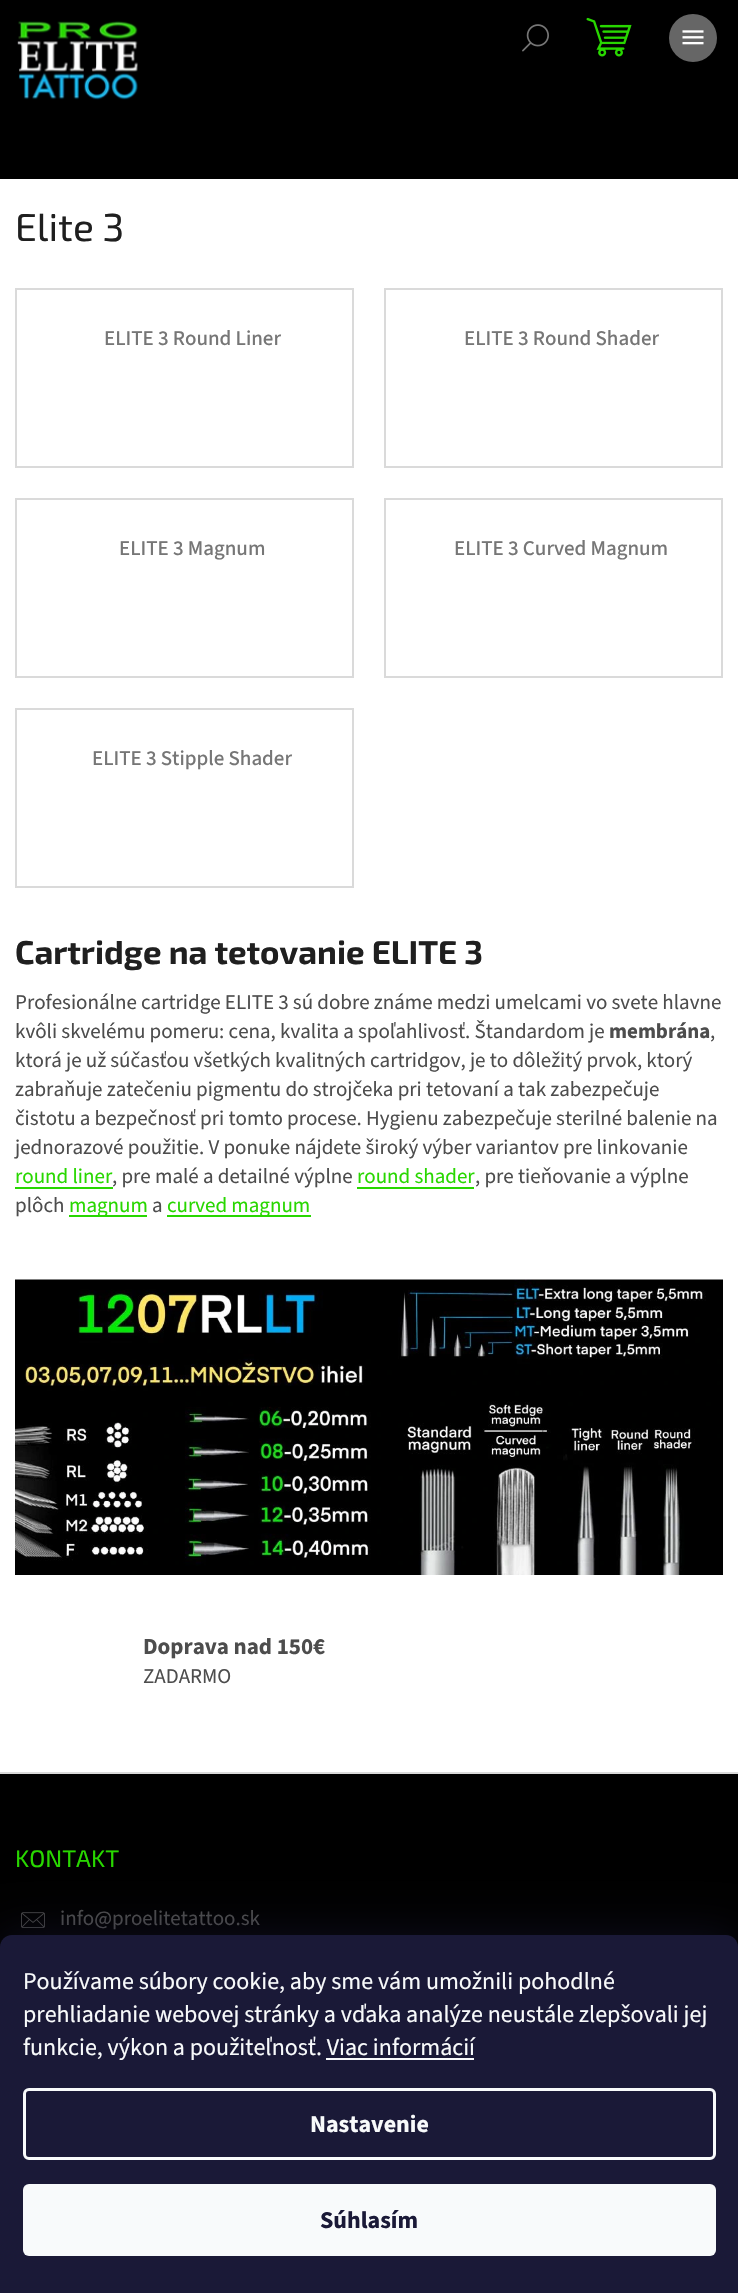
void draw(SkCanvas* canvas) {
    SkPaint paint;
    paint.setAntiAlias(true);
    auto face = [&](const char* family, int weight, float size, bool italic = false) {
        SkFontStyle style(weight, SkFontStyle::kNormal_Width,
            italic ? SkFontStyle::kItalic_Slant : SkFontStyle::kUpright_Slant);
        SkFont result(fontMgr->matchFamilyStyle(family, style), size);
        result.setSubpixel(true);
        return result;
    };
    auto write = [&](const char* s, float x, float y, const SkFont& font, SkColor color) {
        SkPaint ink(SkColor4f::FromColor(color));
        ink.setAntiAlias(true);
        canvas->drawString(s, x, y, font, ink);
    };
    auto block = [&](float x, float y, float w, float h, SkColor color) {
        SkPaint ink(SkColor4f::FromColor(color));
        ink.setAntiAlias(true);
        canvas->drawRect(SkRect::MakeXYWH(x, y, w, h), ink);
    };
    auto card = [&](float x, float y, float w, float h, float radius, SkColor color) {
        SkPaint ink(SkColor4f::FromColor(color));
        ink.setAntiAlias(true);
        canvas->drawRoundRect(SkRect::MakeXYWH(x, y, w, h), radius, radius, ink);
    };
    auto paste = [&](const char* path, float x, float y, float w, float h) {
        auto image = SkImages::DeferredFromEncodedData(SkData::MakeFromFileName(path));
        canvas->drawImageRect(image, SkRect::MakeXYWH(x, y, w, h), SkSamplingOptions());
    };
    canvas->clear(SK_ColorBLACK);
    paste("pic1.png", 522, 24, 27, 28);
    paint.setColor(SkColorSetRGB(102, 102, 102));
    canvas->drawCircle(693, 38, 24, paint);
    paste("pic2.png", 682, 30, 22, 15);
    paste("pic3.png", 17, 21, 121, 79);
    paste("pic4.png", 586, 17, 46, 40);
    block(0, 179, 738, 1593, SK_ColorWHITE);
    auto kFont1 = face("Exo 2", 400, 39);
    write("Elite 3", 15, 241, kFont1, SkColorSetRGB(31, 31, 31));
    paint.setStyle(SkPaint::kStroke_Style);
    paint.setStrokeWidth(2);
    paint.setColor(SkColorSetRGB(218, 218, 218));
    canvas->drawRect(SkRect::MakeXYWH(16, 289, 337, 178), paint);
    auto kFont2 = face("Source Sans 3", 500, 21);
    write("ELITE 3 Round Liner", 104, 345, kFont2, SkColorSetRGB(118, 118, 118));
    canvas->drawRect(SkRect::MakeXYWH(385, 289, 337, 178), paint);
    write("ELITE 3 Round Shader", 464, 345, kFont2, SkColorSetRGB(118, 118, 118));
    canvas->drawRect(SkRect::MakeXYWH(16, 499, 337, 178), paint);
    write("ELITE 3 Magnum", 119, 555, kFont2, SkColorSetRGB(118, 118, 118));
    canvas->drawRect(SkRect::MakeXYWH(385, 499, 337, 178), paint);
    write("ELITE 3 Curved Magnum", 454, 555, kFont2, SkColorSetRGB(118, 118, 118));
    canvas->drawRect(SkRect::MakeXYWH(16, 709, 337, 178), paint);
    write("ELITE 3 Stipple Shader", 92, 765, kFont2, SkColorSetRGB(118, 118, 118));
    auto kFont3 = face("Exo 2", 700, 33);
    write("Cartridge na tetovanie ELITE 3", 15, 964, kFont3, SkColorSetRGB(31, 31, 31));
    auto kFont4 = face("Source Sans 3", 400, 21);
    write("Profesionálne cartridge ELITE 3 sú dobre známe medzi umelcami vo svete hlavne", 15, 1009, kFont4, SkColorSetRGB(77, 77, 77));
    write("kvôli skvelému pomeru: cena, kvalita a spoľahlivosť. Štandardom je", 15, 1038, kFont4, SkColorSetRGB(77, 77, 77));
    auto kFont5 = face("Source Sans 3", 700, 21);
    write("membrána", 609, 1038, kFont5, SkColorSetRGB(77, 77, 77));
    write(",", 710, 1038, kFont4, SkColorSetRGB(77, 77, 77));
    write("ktorá je už súčasťou všetkých kvalitných cartridgov, je to dôležitý prvok, ktorý", 15, 1067, kFont4, SkColorSetRGB(77, 77, 77));
    write("zabraňuje zatečeniu pigmentu do strojčeka pri tetovaní a tak zabezpečuje", 15, 1096, kFont4, SkColorSetRGB(77, 77, 77));
    write("čistotu a bezpečnosť pri tomto procese. Hygienu zabezpečuje sterilné balenie na", 15, 1125, kFont4, SkColorSetRGB(77, 77, 77));
    write("jednorazové použitie. V ponuke nájdete široký výber variantov pre linkovanie", 15, 1154, kFont4, SkColorSetRGB(77, 77, 77));
    write("round liner", 15, 1183, kFont4, SkColorSetRGB(40, 215, 0));
    write(", pre malé a detailné výplne", 112, 1183, kFont4, SkColorSetRGB(77, 77, 77));
    block(15, 1187, 98, 2, SkColorSetRGB(40, 215, 0));
    write("round shader", 357, 1183, kFont4, SkColorSetRGB(40, 215, 0));
    write(", pre tieňovanie a výplne", 475, 1183, kFont4, SkColorSetRGB(77, 77, 77));
    block(357, 1187, 117, 2, SkColorSetRGB(40, 215, 0));
    write("plôch", 15, 1212, kFont4, SkColorSetRGB(77, 77, 77));
    block(69, 1215, 78, 2, SkColorSetRGB(40, 215, 0));
    write("magnum", 69, 1212, kFont4, SkColorSetRGB(40, 215, 0));
    write("a", 152, 1212, kFont4, SkColorSetRGB(77, 77, 77));
    block(167, 1215, 144, 2, SkColorSetRGB(40, 215, 0));
    write("curved magnum", 167, 1212, kFont4, SkColorSetRGB(40, 215, 0));
    paste("pic5.png", 15, 1279, 708, 296);
    auto kFont6 = face("Source Sans 3", 700, 23);
    write("Doprava nad 150€", 143, 1654, kFont6, SkColorSetRGB(77, 77, 77));
    write("ZADARMO", 143, 1683, kFont4, SkColorSetRGB(77, 77, 77));
    block(0, 1772, 738, 2, SkColorSetRGB(218, 218, 218));
    auto kFont7 = face("Exo 2", 400, 24);
    write("KONTAKT", 15, 1867, kFont7, SkColorSetRGB(40, 215, 0));
    paste("pic6.png", 21, 1912, 24, 16);
    write("info@proelitetattoo.sk", 60, 1925, kFont4, SkColorSetRGB(77, 77, 77));
    paint.setStyle(SkPaint::kFill_Style);
    paint.setColor(SkColorSetARGB(128, 27, 25, 57));
    paint.setMaskFilter(SkMaskFilter::MakeBlur(kNormal_SkBlurStyle, 22.5f));
    canvas->drawRoundRect(SkRect::MakeXYWH(0, 1935, 738, 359), 12, 12, paint);
    paint.setMaskFilter(nullptr);
    paint.setColor(SkColorSetRGB(26, 25, 55));
    canvas->drawPath(SkPathBuilder().moveTo(12, 1935).lineTo(726, 1935).cubicTo(732.5f, 1935, 738, 1940.5f, 738, 1947).lineTo(738, 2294).lineTo(0, 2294).lineTo(0, 1947).cubicTo(0, 1940.5f, 5.5f, 1935, 12, 1935).close().detach(), paint);
    auto kFont8 = face("Source Sans 3", 400, 24);
    write("Používame súbory cookie, aby sme vám umožnili pohodlné", 23, 1989, kFont8, SkColorSetRGB(248, 250, 251));
    write("prehliadanie webovej stránky a vďaka analýze neustále zlepšovali jej", 23, 2022, kFont8, SkColorSetRGB(248, 250, 251));
    write("funkcie, výkon a použiteľnosť. Viac informácií", 23, 2055, kFont8, SkColorSetRGB(248, 250, 251));
    block(326, 2058, 148, 2, SkColorSetRGB(248, 250, 251));
    paint.setStyle(SkPaint::kStroke_Style);
    paint.setStrokeWidth(3);
    paint.setColor(SkColorSetRGB(248, 250, 251));
    canvas->drawRoundRect(SkRect::MakeXYWH(24.5f, 2089.5f, 690, 69), 4.5f, 4.5f, paint);
    auto kFont9 = face("Source Sans 3", 700, 24);
    write("Nastavenie", 310, 2132, kFont9, SkColorSetRGB(248, 250, 251));
    card(23, 2184, 693, 72, 6, SkColorSetRGB(248, 250, 251));
    write("Súhlasím", 320, 2228, kFont9, SkColorSetRGB(26, 25, 55));
}
